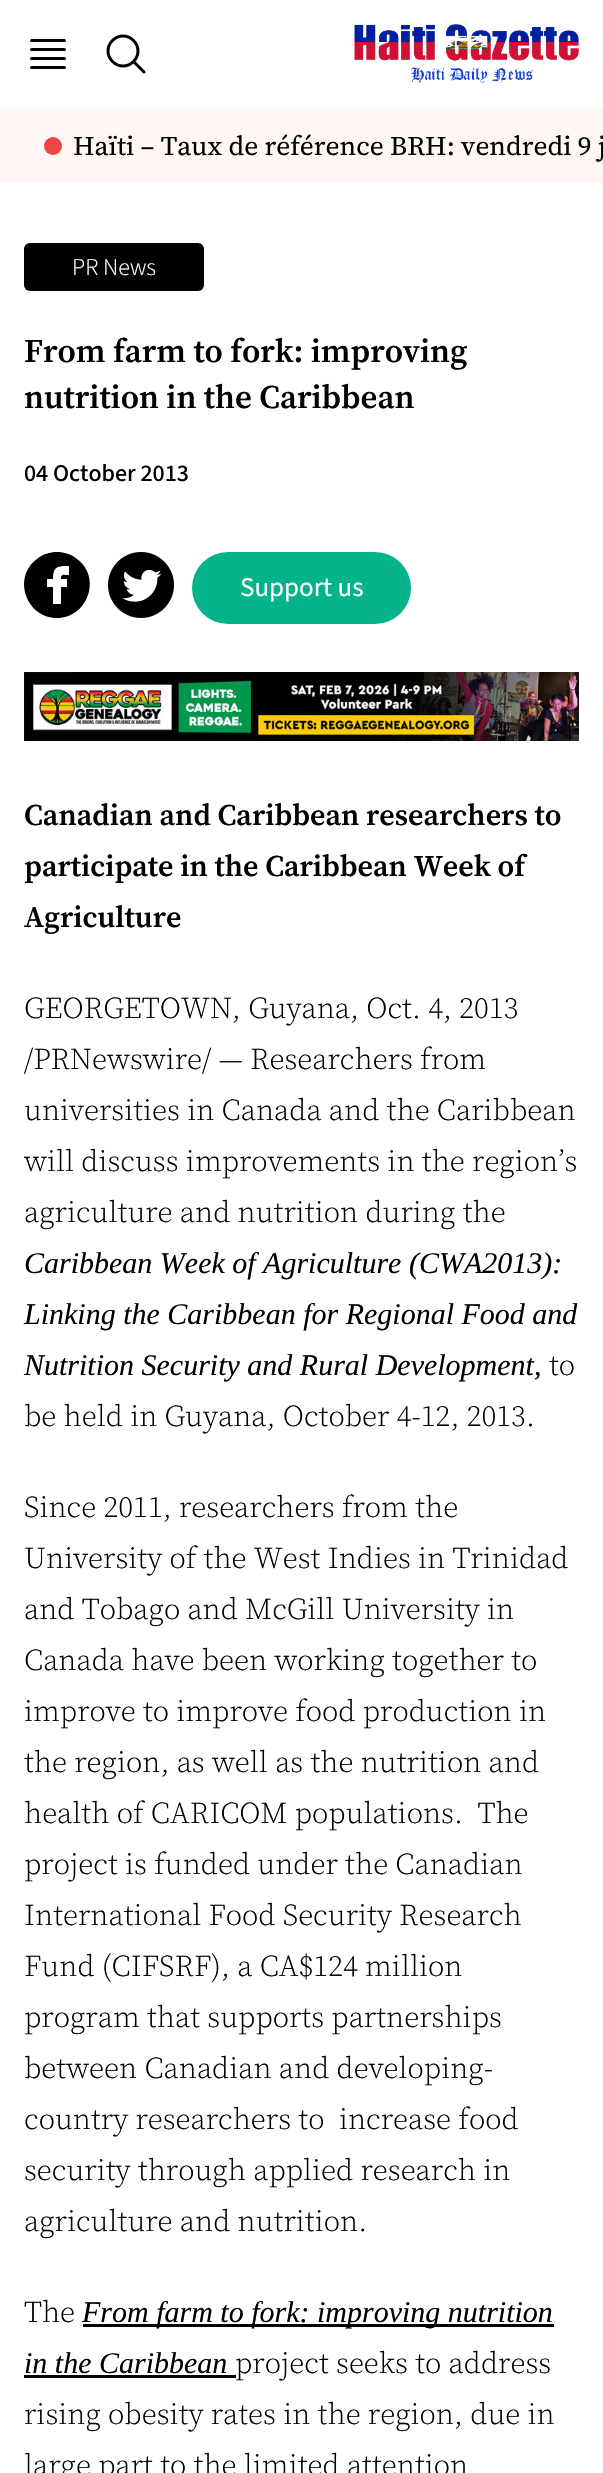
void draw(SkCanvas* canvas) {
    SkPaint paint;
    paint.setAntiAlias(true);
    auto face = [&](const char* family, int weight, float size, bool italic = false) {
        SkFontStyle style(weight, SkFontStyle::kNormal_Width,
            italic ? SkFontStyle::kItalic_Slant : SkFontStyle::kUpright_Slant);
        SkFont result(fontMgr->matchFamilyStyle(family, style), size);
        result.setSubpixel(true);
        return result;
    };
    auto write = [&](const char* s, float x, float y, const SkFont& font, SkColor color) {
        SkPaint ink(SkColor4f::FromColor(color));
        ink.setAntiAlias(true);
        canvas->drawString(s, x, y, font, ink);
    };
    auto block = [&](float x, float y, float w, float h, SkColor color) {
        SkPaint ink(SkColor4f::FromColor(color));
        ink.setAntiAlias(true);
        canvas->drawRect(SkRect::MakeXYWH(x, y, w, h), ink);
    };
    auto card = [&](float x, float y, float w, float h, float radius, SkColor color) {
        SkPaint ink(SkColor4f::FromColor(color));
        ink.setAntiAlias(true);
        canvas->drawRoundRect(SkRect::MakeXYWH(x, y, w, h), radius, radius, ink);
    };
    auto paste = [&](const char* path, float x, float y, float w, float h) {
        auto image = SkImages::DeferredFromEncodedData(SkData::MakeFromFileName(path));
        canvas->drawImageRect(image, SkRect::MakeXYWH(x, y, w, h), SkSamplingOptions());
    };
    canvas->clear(SK_ColorWHITE);
    paint.setStyle(SkPaint::kStroke_Style);
    paint.setStrokeWidth(3);
    paint.setStrokeCap(SkPaint::kRound_Cap);
    paint.setStrokeJoin(SkPaint::kRound_Join);
    paint.setColor(SK_ColorBLACK);
    canvas->drawPath(SkPathBuilder().moveTo(31.5f, 40.5f).lineTo(64.5f, 40.5f).moveTo(31.5f, 49.5f).lineTo(64.5f, 49.5f).moveTo(31.5f, 58.5f).lineTo(64.5f, 58.5f).moveTo(31.5f, 67.5f).lineTo(64.5f, 67.5f).detach(), paint);
    canvas->drawPath(SkPathBuilder().moveTo(144, 72).lineTo(133.5f, 61.5f).moveTo(133.5f, 61.5f).cubicTo(139.5f, 55.5f, 139.5f, 46.5f, 133.5f, 40.5f).cubicTo(127.5f, 34.5f, 118.5f, 34.5f, 112.5f, 40.5f).cubicTo(106.5f, 46.5f, 106.5f, 55.5f, 112.5f, 61.5f).cubicTo(118.5f, 67.5f, 127.5f, 67.5f, 133.5f, 61.5f).close().detach(), paint);
    paste("pic1.png", 354, 24, 225, 59);
    block(0, 107, 603, 76, SkColorSetRGB(255, 247, 244));
    paint.setStyle(SkPaint::kFill_Style);
    paint.setColor(SkColorSetRGB(239, 68, 68));
    canvas->drawCircle(53, 146, 9, paint);
    auto kFont1 = face("Source Serif 4", 400, 27);
    write("Haïti – Taux de référence BRH: vendredi 9 j", 73, 155, kFont1, SK_ColorBLACK);
    card(24, 243, 180, 48, 6, SK_ColorBLACK);
    auto kFont2 = face("Source Sans 3", 300, 24);
    write("PR News", 72, 275, kFont2, SK_ColorWHITE);
    auto kFont3 = face("Source Serif 4", 600, 33);
    write("From farm to fork: improving", 24, 362, kFont3, SK_ColorBLACK);
    write("nutrition in the Caribbean", 24, 408, kFont3, SK_ColorBLACK);
    auto kFont4 = face("Source Sans 3", 500, 24);
    write("04 October 2013", 24, 481, kFont4, SK_ColorBLACK);
    paint.setColor(SK_ColorBLACK);
    canvas->drawPath(SkPathBuilder().moveTo(57, 552).cubicTo(64, 552, 71, 554, 77, 559).cubicTo(102, 577, 88, 618, 57, 618).cubicTo(26, 618, 12, 577, 37, 559).cubicTo(43, 554, 50, 552, 57, 552).close().moveTo(69, 566).cubicTo(58, 566, 53, 566, 53, 579).lineTo(47, 579).lineTo(47, 587).lineTo(53, 587).lineTo(53, 604).lineTo(61, 604).lineTo(61, 587).lineTo(67, 587).lineTo(67, 579).lineTo(61, 579).cubicTo(61, 573, 64, 575, 69, 575).close().detach(), paint);
    paste("pic2.png", 108, 552, 66, 66);
    card(192, 552, 219, 72, 36, SkColorSetRGB(4, 179, 139));
    auto kFont5 = face("Source Sans 3", 400, 27);
    write("Support us", 240, 596, kFont5, SK_ColorWHITE);
    paste("pic3.png", 24, 672, 555, 69);
    auto kFont6 = face("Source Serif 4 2", 600, 30);
    write("Canadian and Caribbean researchers to", 24, 825, kFont6, SK_ColorBLACK);
    write("participate in the Caribbean Week of", 24, 876, kFont6, SK_ColorBLACK);
    write("Agriculture", 24, 927, kFont6, SK_ColorBLACK);
    auto kFont7 = face("Source Serif 4", 300, 30);
    write("GEORGETOWN, Guyana, Oct. 4, 2013", 24, 1018, kFont7, SK_ColorBLACK);
    write("/PRNewswire/ — Researchers from", 24, 1069, kFont7, SK_ColorBLACK);
    write("universities in Canada and the Caribbean", 24, 1120, kFont7, SK_ColorBLACK);
    write("will discuss improvements in the region’s", 24, 1171, kFont7, SK_ColorBLACK);
    write("agriculture and nutrition during the", 24, 1222, kFont7, SK_ColorBLACK);
    auto kFont8 = face("Liberation Serif", 400, 30, true);
    write("Caribbean Week of Agriculture (CWA2013):", 24, 1273, kFont8, SK_ColorBLACK);
    write("Linking the Caribbean for Regional Food and", 24, 1324, kFont8, SK_ColorBLACK);
    write("Nutrition Security and Rural Development,", 24, 1375, kFont8, SK_ColorBLACK);
    write("to", 549, 1375, kFont7, SK_ColorBLACK);
    write("be held in Guyana, October 4-12, 2013.", 24, 1426, kFont7, SK_ColorBLACK);
    write("Since 2011, researchers from the", 24, 1517, kFont7, SK_ColorBLACK);
    write("University of the West Indies in Trinidad", 24, 1568, kFont7, SK_ColorBLACK);
    write("and Tobago and McGill University in", 24, 1619, kFont7, SK_ColorBLACK);
    write("Canada have been working together to", 24, 1670, kFont7, SK_ColorBLACK);
    write("improve to improve food production in", 24, 1721, kFont7, SK_ColorBLACK);
    write("the region, as well as the nutrition and", 24, 1772, kFont7, SK_ColorBLACK);
    write("health of CARICOM populations.  The", 24, 1823, kFont7, SK_ColorBLACK);
    write("project is funded under the Canadian", 24, 1874, kFont7, SK_ColorBLACK);
    write("International Food Security Research", 24, 1925, kFont7, SK_ColorBLACK);
    write("Fund (CIFSRF), a CA$124 million", 24, 1976, kFont7, SK_ColorBLACK);
    write("program that supports partnerships", 24, 2027, kFont7, SK_ColorBLACK);
    write("between Canadian and developing-", 24, 2078, kFont7, SK_ColorBLACK);
    write("country researchers to  increase food", 24, 2129, kFont7, SK_ColorBLACK);
    write("security through applied research in", 24, 2180, kFont7, SK_ColorBLACK);
    write("agriculture and nutrition.", 24, 2231, kFont7, SK_ColorBLACK);
    write("The", 24, 2322, kFont7, SK_ColorBLACK);
    block(83, 2324, 471, 3, SK_ColorBLACK);
    write("From farm to fork: improving nutrition", 82, 2322, kFont8, SK_ColorBLACK);
    write("in the Caribbean", 24, 2373, kFont8, SK_ColorBLACK);
    block(24, 2375, 212, 3, SK_ColorBLACK);
    write("project seeks to address", 235, 2373, kFont7, SK_ColorBLACK);
    write("rising obesity rates in the region, due in", 24, 2424, kFont7, SK_ColorBLACK);
    write("large part to the limited attention", 24, 2475, kFont7, SK_ColorBLACK);
}
